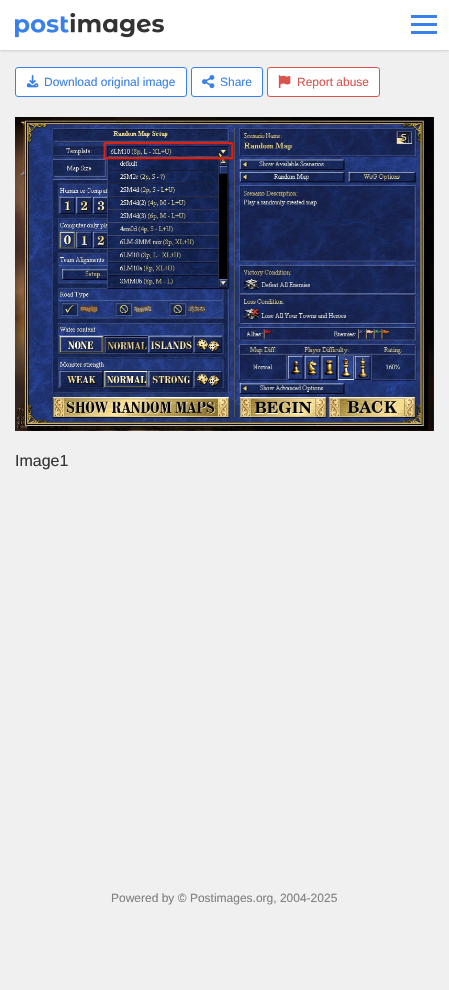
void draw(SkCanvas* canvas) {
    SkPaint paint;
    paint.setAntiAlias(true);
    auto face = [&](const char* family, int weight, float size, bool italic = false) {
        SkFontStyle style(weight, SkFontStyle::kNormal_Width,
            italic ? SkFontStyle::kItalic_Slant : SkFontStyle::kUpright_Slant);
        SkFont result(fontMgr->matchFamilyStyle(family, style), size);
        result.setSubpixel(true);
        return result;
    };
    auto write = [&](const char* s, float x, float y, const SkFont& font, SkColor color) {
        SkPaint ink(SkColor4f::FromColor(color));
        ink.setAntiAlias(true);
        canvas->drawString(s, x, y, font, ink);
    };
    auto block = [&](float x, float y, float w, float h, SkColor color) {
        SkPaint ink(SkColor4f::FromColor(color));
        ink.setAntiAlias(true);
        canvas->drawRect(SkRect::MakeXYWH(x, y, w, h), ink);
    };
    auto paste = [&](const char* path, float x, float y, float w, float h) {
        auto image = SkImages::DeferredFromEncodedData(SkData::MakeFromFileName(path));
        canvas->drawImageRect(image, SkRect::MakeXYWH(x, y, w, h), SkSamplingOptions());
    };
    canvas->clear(SkColorSetRGB(240, 240, 240));
    paint.setColor(SkColorSetARGB(64, 0, 0, 0));
    paint.setMaskFilter(SkMaskFilter::MakeBlur(kNormal_SkBlurStyle, 1.5f));
    canvas->drawRect(SkRect::MakeXYWH(0, 0, 449, 50), paint);
    paint.setMaskFilter(nullptr);
    block(0, 0, 449, 50, SK_ColorWHITE);
    paste("pic1.png", 15, 13, 149, 25);
    block(411, 15, 26, 3, SkColorSetRGB(58, 128, 234));
    block(411, 23, 26, 3, SkColorSetRGB(58, 128, 234));
    block(411, 31, 26, 3, SkColorSetRGB(58, 128, 234));
    paint.setColor(SK_ColorWHITE);
    canvas->drawRoundRect(SkRect::MakeXYWH(15.5f, 67.5f, 171, 29), 2.5f, 2.5f, paint);
    paint.setStyle(SkPaint::kStroke_Style);
    paint.setStrokeWidth(1);
    paint.setColor(SkColorSetRGB(58, 128, 234));
    canvas->drawRoundRect(SkRect::MakeXYWH(15.5f, 67.5f, 171, 29), 2.5f, 2.5f, paint);
    paste("pic2.png", 26, 75, 13, 13);
    auto kFont1 = face("Liberation Sans", 400, 12);
    write("Download original image", 44, 86, kFont1, SkColorSetRGB(58, 128, 234));
    paint.setStyle(SkPaint::kFill_Style);
    paint.setColor(SK_ColorWHITE);
    canvas->drawRoundRect(SkRect::MakeXYWH(191.5f, 67.5f, 71, 29), 2.5f, 2.5f, paint);
    paint.setStyle(SkPaint::kStroke_Style);
    paint.setColor(SkColorSetRGB(58, 128, 234));
    canvas->drawRoundRect(SkRect::MakeXYWH(191.5f, 67.5f, 71, 29), 2.5f, 2.5f, paint);
    paste("pic3.png", 202, 75, 13, 14);
    write("Share", 220, 86, kFont1, SkColorSetRGB(58, 128, 234));
    paint.setStyle(SkPaint::kFill_Style);
    paint.setColor(SK_ColorWHITE);
    canvas->drawRoundRect(SkRect::MakeXYWH(267.5f, 67.5f, 112, 29), 2.5f, 2.5f, paint);
    paint.setStyle(SkPaint::kStroke_Style);
    paint.setColor(SkColorSetRGB(217, 83, 79));
    canvas->drawRoundRect(SkRect::MakeXYWH(267.5f, 67.5f, 112, 29), 2.5f, 2.5f, paint);
    paste("pic4.png", 278, 75, 13, 14);
    write("Report abuse", 297, 86, kFont1, SkColorSetRGB(217, 83, 79));
    paste("pic5.png", 15, 117, 419, 314);
    auto kFont2 = face("Liberation Sans", 400, 16);
    write("Image1", 15, 466, kFont2, SkColorSetRGB(51, 51, 51));
    write("Powered by © Postimages.org, 2004-2025", 111, 902, kFont1, SkColorSetRGB(128, 128, 128));
}
